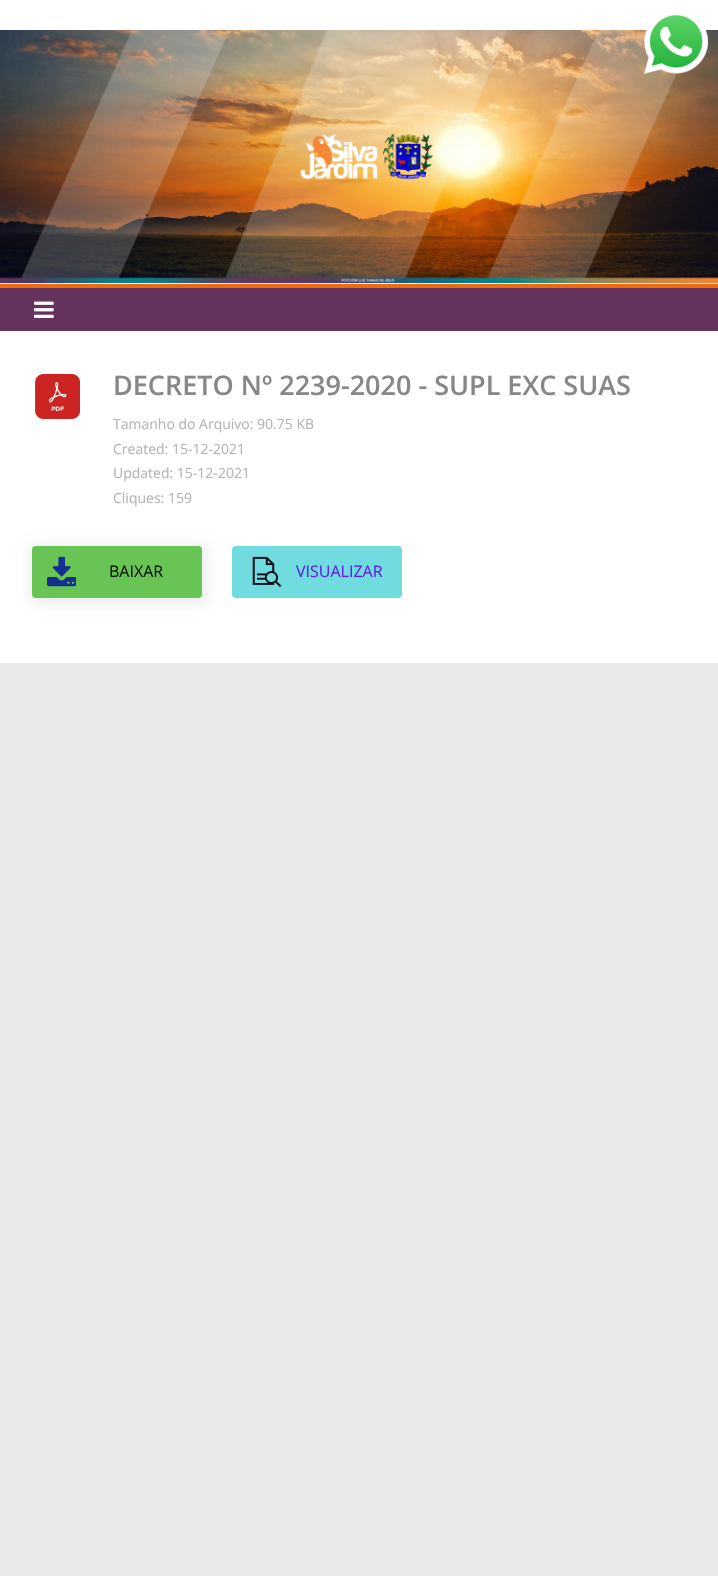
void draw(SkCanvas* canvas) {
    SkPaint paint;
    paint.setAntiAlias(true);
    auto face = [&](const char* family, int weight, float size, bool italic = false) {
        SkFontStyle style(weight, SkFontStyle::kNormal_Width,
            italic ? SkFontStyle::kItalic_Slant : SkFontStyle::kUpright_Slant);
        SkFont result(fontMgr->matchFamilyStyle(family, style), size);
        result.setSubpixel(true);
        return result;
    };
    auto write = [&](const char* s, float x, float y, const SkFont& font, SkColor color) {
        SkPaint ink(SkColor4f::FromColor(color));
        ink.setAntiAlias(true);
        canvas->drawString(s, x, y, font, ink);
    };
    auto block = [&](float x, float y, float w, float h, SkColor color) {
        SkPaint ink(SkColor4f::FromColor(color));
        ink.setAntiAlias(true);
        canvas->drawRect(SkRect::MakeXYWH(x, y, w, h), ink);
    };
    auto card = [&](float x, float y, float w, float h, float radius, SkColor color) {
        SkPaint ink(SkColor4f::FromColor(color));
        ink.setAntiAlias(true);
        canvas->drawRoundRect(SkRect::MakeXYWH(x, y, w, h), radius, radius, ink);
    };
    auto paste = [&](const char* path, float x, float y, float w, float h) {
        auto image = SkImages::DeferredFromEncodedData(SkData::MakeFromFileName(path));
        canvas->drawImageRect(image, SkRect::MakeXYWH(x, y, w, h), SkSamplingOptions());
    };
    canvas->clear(SkColorSetRGB(234, 234, 234));
    block(0, 0, 718, 30, SK_ColorWHITE);
    paste("pic2.png", 0, 30, 718, 253);
    paste("pic1.png", 644, 15, 64, 59);
    block(0, 288, 718, 43, SkColorSetRGB(101, 50, 91));
    block(0, 284, 718, 4, SkColorSetRGB(237, 107, 12));
    paste("pic3.png", 34, 301, 20, 17);
    block(0, 331, 718, 332, SK_ColorWHITE);
    paste("pic4.png", 35, 374, 45, 45);
    auto kFont1 = face("Open Sans", 600, 27);
    write("DECRETO Nº 2239-2020 - SUPL EXC SUAS", 113, 395, kFont1, SkColorSetRGB(135, 135, 135));
    auto kFont2 = face("Open Sans", 400, 14);
    write("Tamanho do Arquivo: 90.75 KB", 113, 429, kFont2, SkColorSetRGB(179, 179, 179));
    write("Created: 15-12-2021", 113, 454, kFont2, SkColorSetRGB(179, 179, 179));
    write("Updated: 15-12-2021", 113, 478, kFont2, SkColorSetRGB(179, 179, 179));
    write("Cliques: 159", 113, 503, kFont2, SkColorSetRGB(179, 179, 179));
    paint.setColor(SkColorSetRGB(240, 240, 240));
    paint.setMaskFilter(SkMaskFilter::MakeBlur(kNormal_SkBlurStyle, 6));
    canvas->drawRoundRect(SkRect::MakeXYWH(29, 543, 180, 62), 9, 9, paint);
    paint.setMaskFilter(nullptr);
    card(32, 546, 170, 52, 4, SkColorSetRGB(103, 196, 85));
    paste("pic5.png", 47, 556, 29, 31);
    auto kFont3 = face("Open Sans", 400, 16);
    write("BAIXAR", 109, 577, kFont3, SkColorSetRGB(8, 20, 3));
    card(232, 546, 170, 52, 4, SkColorSetRGB(112, 220, 224));
    paste("pic6.png", 252, 556, 30, 31);
    write("VISUALIZAR", 296, 577, kFont3, SkColorSetRGB(97, 30, 232));
}
